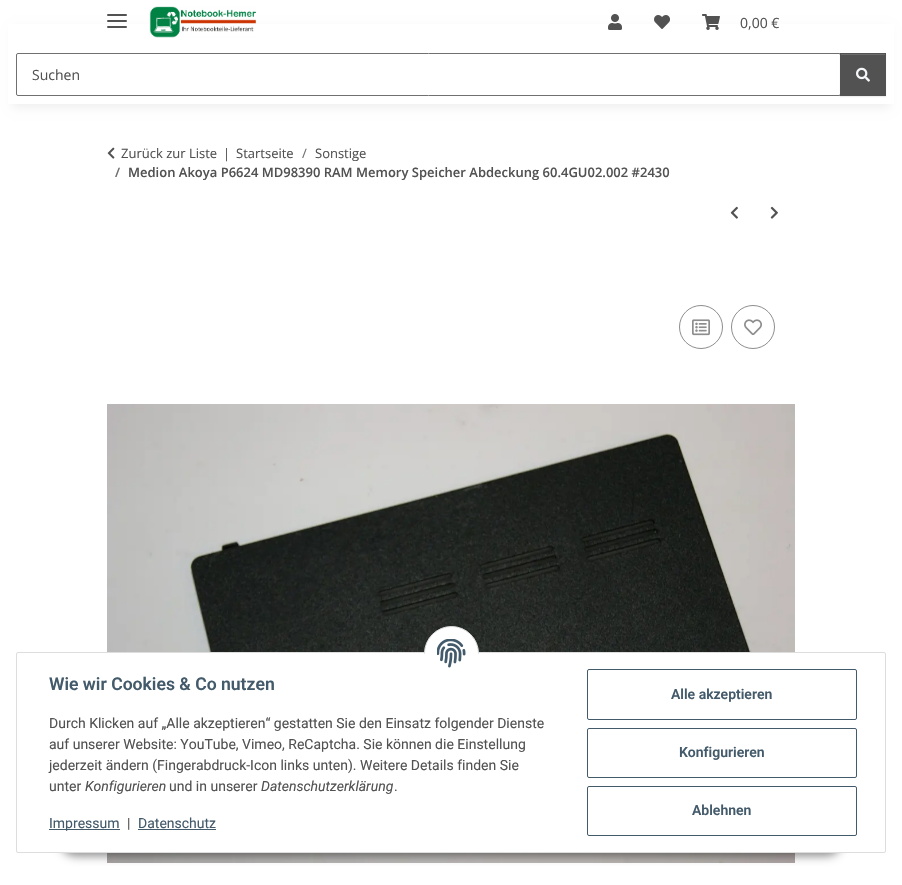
void draw(SkCanvas* canvas) {
    SkPaint paint;
    paint.setAntiAlias(true);
    auto face = [&](const char* family, int weight, float size, bool italic = false) {
        SkFontStyle style(weight, SkFontStyle::kNormal_Width,
            italic ? SkFontStyle::kItalic_Slant : SkFontStyle::kUpright_Slant);
        SkFont result(fontMgr->matchFamilyStyle(family, style), size);
        result.setSubpixel(true);
        return result;
    };
    auto write = [&](const char* s, float x, float y, const SkFont& font, SkColor color) {
        SkPaint ink(SkColor4f::FromColor(color));
        ink.setAntiAlias(true);
        canvas->drawString(s, x, y, font, ink);
    };
    auto block = [&](float x, float y, float w, float h, SkColor color) {
        SkPaint ink(SkColor4f::FromColor(color));
        ink.setAntiAlias(true);
        canvas->drawRect(SkRect::MakeXYWH(x, y, w, h), ink);
    };
    auto card = [&](float x, float y, float w, float h, float radius, SkColor color) {
        SkPaint ink(SkColor4f::FromColor(color));
        ink.setAntiAlias(true);
        canvas->drawRoundRect(SkRect::MakeXYWH(x, y, w, h), radius, radius, ink);
    };
    auto paste = [&](const char* path, float x, float y, float w, float h) {
        auto image = SkImages::DeferredFromEncodedData(SkData::MakeFromFileName(path));
        canvas->drawImageRect(image, SkRect::MakeXYWH(x, y, w, h), SkSamplingOptions());
    };
    canvas->clear(SK_ColorWHITE);
    paint.setColor(SkColorSetARGB(15, 0, 0, 0));
    paint.setMaskFilter(SkMaskFilter::MakeBlur(kNormal_SkBlurStyle, 4.5f));
    canvas->drawRect(SkRect::MakeXYWH(12, 28, 878, 80), paint);
    paint.setMaskFilter(nullptr);
    block(8, 24, 886, 80, SK_ColorWHITE);
    card(107, 20, 20, 2, 1, SkColorSetRGB(82, 82, 82));
    card(107, 14, 20, 2, 1, SkColorSetRGB(82, 82, 82));
    card(107, 26, 20, 2, 1, SkColorSetRGB(82, 82, 82));
    paste("pic1.png", 149, 6, 107, 32);
    paste("pic2.png", 608, 14, 14, 16);
    paste("pic3.png", 654, 15, 16, 14);
    paste("pic4.png", 702, 14, 18, 16);
    auto kFont1 = face("Open Sans", 400, 14);
    write("0,00 €", 740, 28, kFont1, SkColorSetRGB(82, 82, 82));
    paint.setStyle(SkPaint::kStroke_Style);
    paint.setStrokeWidth(1);
    paint.setColor(SkColorSetRGB(112, 112, 112));
    canvas->drawRoundRect(SkRect::MakeXYWH(16.5f, 53.5f, 824, 42), 1.5f, 1.5f, paint);
    write("Suchen", 32, 80, kFont1, SkColorSetRGB(82, 82, 82));
    paint.setStyle(SkPaint::kFill_Style);
    paint.setColor(SkColorSetARGB(18, 0, 0, 0));
    paint.setMaskFilter(SkMaskFilter::MakeBlur(kNormal_SkBlurStyle, 0.5f));
    canvas->drawRect(SkRect::MakeXYWH(840, 54, 46, 43), paint);
    paint.setMaskFilter(nullptr);
    block(840, 53, 46, 43, SkColorSetRGB(82, 82, 82));
    block(841, 54, 44, 1, SkColorSetRGB(108, 108, 108));
    paste("pic5.png", 856, 67, 14, 15);
    paste("pic6.png", 107, 147, 8, 12);
    auto kFont2 = face("Open Sans", 400, 13);
    write("Zurück zur Liste", 121, 158, kFont2, SkColorSetRGB(82, 82, 82));
    write("|", 223, 158, kFont2, SkColorSetRGB(82, 82, 82));
    write("Startseite", 236, 158, kFont2, SkColorSetRGB(82, 82, 82));
    write("/", 302, 158, kFont2, SkColorSetRGB(112, 112, 112));
    write("Sonstige", 315, 158, kFont2, SkColorSetRGB(82, 82, 82));
    auto kFont3 = face("Open Sans", 600, 13);
    write("/", 115, 177, kFont3, SkColorSetRGB(112, 112, 112));
    write("Medion Akoya P6624 MD98390 RAM Memory Speicher Abdeckung 60.4GU02.002 #2430", 128, 177, kFont3, SkColorSetRGB(82, 82, 82));
    paste("pic7.png", 730, 206, 8, 13);
    paste("pic8.png", 770, 206, 8, 13);
    paint.setStyle(SkPaint::kStroke_Style);
    paint.setColor(SkColorSetRGB(141, 141, 141));
    canvas->drawCircle(701, 327, 21.5f, paint);
    paste("pic9.png", 692, 319, 18, 17);
    canvas->drawCircle(753, 327, 21.5f, paint);
    paste("pic10.png", 744, 319, 18, 17);
    paste("pic11.png", 107, 404, 688, 459);
    paint.setStyle(SkPaint::kFill_Style);
    paint.setColor(SkColorSetARGB(115, 0, 0, 0));
    paint.setMaskFilter(SkMaskFilter::MakeBlur(kNormal_SkBlurStyle, 5));
    canvas->drawRoundRect(SkRect::MakeXYWH(60, 824, 782, 32), 16, 16, paint);
    paint.setMaskFilter(nullptr);
    paint.setColor(SK_ColorWHITE);
    canvas->drawRoundRect(SkRect::MakeXYWH(16.5f, 652.5f, 869, 200), 1.5f, 1.5f, paint);
    paint.setStyle(SkPaint::kStroke_Style);
    paint.setColor(SkColorSetRGB(221, 221, 221));
    canvas->drawRoundRect(SkRect::MakeXYWH(16.5f, 652.5f, 869, 200), 1.5f, 1.5f, paint);
    paint.setStyle(SkPaint::kFill_Style);
    paint.setColor(SK_ColorWHITE);
    canvas->drawCircle(451.5f, 653.5f, 27, paint);
    paint.setStyle(SkPaint::kStroke_Style);
    paint.setColor(SkColorSetRGB(221, 221, 221));
    canvas->drawCircle(451.5f, 653.5f, 27, paint);
    block(424, 654, 55, 27, SK_ColorWHITE);
    paste("pic12.png", 437, 639, 29, 29);
    auto kFont4 = face("Roboto", 600, 17.6f);
    write("Wie wir Cookies & Co nutzen", 49, 690, kFont4, SkColorSetRGB(67, 90, 107));
    auto kFont5 = face("Roboto", 400, 14);
    write("Durch Klicken auf „Alle akzeptieren“ gestatten Sie den Einsatz folgender Dienste", 49, 728, kFont5, SkColorSetRGB(82, 82, 82));
    write("auf unserer Website: YouTube, Vimeo, ReCaptcha. Sie können die Einstellung", 49, 749, kFont5, SkColorSetRGB(82, 82, 82));
    write("jederzeit ändern (Fingerabdruck-Icon links unten). Weitere Details finden Sie", 49, 770, kFont5, SkColorSetRGB(82, 82, 82));
    write("unter", 49, 791, kFont5, SkColorSetRGB(82, 82, 82));
    auto kFont6 = face("Roboto", 400, 14, true);
    write("Konfigurieren", 85, 791, kFont6, SkColorSetRGB(82, 82, 82));
    write("und in unserer", 169, 791, kFont5, SkColorSetRGB(82, 82, 82));
    write("Datenschutzerklärung", 261, 791, kFont6, SkColorSetRGB(82, 82, 82));
    write(".", 394, 791, kFont5, SkColorSetRGB(82, 82, 82));
    block(49, 829, 71, 1, SkColorSetRGB(67, 90, 107));
    write("Impressum", 49, 828, kFont5, SkColorSetRGB(67, 90, 107));
    write("|", 127, 828, kFont5, SkColorSetRGB(82, 82, 82));
    write("Datenschutz", 138, 828, kFont5, SkColorSetRGB(67, 90, 107));
    block(138, 829, 78, 1, SkColorSetRGB(67, 90, 107));
    paint.setColor(SkColorSetRGB(67, 90, 107));
    canvas->drawRoundRect(SkRect::MakeXYWH(587.5f, 669.5f, 269, 50), 1.5f, 1.5f, paint);
    auto kFont7 = face("Roboto", 600, 14);
    write("Alle akzeptieren", 671, 699, kFont7, SkColorSetRGB(67, 90, 107));
    canvas->drawRoundRect(SkRect::MakeXYWH(587.5f, 728.5f, 269, 49), 1.5f, 1.5f, paint);
    write("Konfigurieren", 679, 757, kFont7, SkColorSetRGB(67, 90, 107));
    canvas->drawRoundRect(SkRect::MakeXYWH(587.5f, 786.5f, 269, 49), 1.5f, 1.5f, paint);
    write("Ablehnen", 692, 815, kFont7, SkColorSetRGB(67, 90, 107));
}
